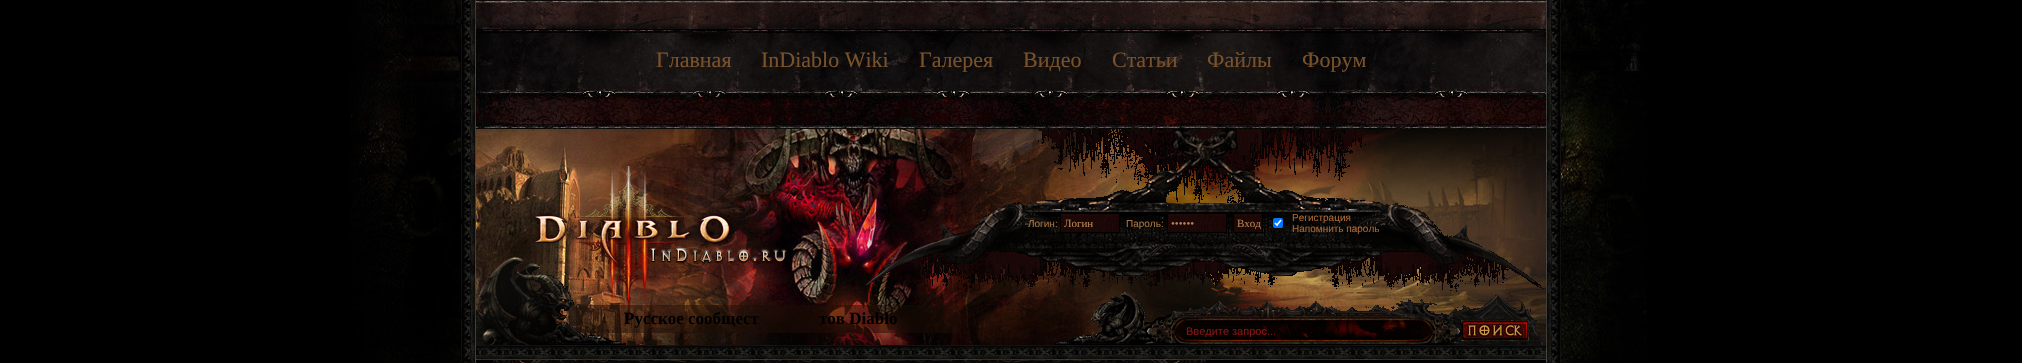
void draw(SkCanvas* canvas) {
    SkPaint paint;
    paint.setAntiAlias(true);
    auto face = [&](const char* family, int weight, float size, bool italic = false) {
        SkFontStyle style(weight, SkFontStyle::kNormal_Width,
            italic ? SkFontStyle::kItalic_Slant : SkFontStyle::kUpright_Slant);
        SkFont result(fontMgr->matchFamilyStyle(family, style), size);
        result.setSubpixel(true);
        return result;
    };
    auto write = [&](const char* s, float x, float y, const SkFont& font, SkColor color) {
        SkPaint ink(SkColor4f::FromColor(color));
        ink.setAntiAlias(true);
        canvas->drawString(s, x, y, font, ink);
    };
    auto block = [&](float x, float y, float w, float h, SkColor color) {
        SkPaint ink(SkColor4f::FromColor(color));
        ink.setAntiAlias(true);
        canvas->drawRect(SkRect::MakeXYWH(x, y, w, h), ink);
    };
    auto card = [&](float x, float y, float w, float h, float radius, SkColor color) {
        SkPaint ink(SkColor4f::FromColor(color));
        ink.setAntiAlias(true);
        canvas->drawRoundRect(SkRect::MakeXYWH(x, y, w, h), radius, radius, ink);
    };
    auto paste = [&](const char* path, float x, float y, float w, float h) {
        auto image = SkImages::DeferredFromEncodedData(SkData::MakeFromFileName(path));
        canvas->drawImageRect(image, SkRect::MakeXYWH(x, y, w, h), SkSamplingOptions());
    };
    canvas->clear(SK_ColorBLACK);
    paste("pic1.png", 350, 0, 1297, 363);
    paste("pic2.png", 476, 129, 1070, 216);
    paste("pic3.png", 461, 0, 15, 363);
    paste("pic4.png", 476, 0, 1070, 129);
    auto kFont1 = face("Liberation Serif", 400, 22);
    write("Главная", 656, 67, kFont1, SkColorSetRGB(121, 82, 43));
    write("InDiablo Wiki", 761, 67, kFont1, SkColorSetRGB(121, 82, 43));
    write("Галерея", 919, 67, kFont1, SkColorSetRGB(121, 82, 43));
    write("Видео", 1023, 67, kFont1, SkColorSetRGB(121, 82, 43));
    write("Статьи", 1112, 67, kFont1, SkColorSetRGB(121, 82, 43));
    write("Файлы", 1207, 67, kFont1, SkColorSetRGB(121, 82, 43));
    write("Форум", 1302, 67, kFont1, SkColorSetRGB(121, 82, 43));
    paste("pic5.png", 476, 257, 150, 88);
    paste("pic6.png", 532, 166, 255, 160);
    paste("pic7.png", 865, 129, 679, 163);
    auto kFont2 = face("Liberation Sans", 400, 10);
    write("Логин:", 1028, 227, kFont2, SkColorSetRGB(164, 115, 65));
    paste("pic8.png", 1061, 214, 58, 18);
    paint.setStyle(SkPaint::kStroke_Style);
    paint.setStrokeWidth(1);
    paint.setColor(SK_ColorBLACK);
    canvas->drawRect(SkRect::MakeXYWH(1060.5f, 213.5f, 59, 19), paint);
    auto kFont3 = face("Liberation Serif", 400, 11);
    write("Логин", 1064, 227, kFont3, SkColorSetRGB(180, 131, 81));
    write("Пароль:", 1126, 227, kFont2, SkColorSetRGB(164, 115, 65));
    paste("pic8.png", 1168, 214, 58, 18);
    canvas->drawRect(SkRect::MakeXYWH(1167.5f, 213.5f, 59, 19), paint);
    write("••••••", 1171, 227, kFont3, SkColorSetRGB(180, 131, 81));
    paste("pic9.png", 1234, 214, 28, 18);
    canvas->drawRect(SkRect::MakeXYWH(1233.5f, 213.5f, 29, 19), paint);
    write("Вход", 1237, 227, kFont3, SkColorSetRGB(180, 131, 81));
    card(1273, 218, 10, 10, 2, SkColorSetRGB(0, 117, 255));
    paint.setStrokeWidth(1.6f);
    paint.setColor(SK_ColorWHITE);
    canvas->drawPath(SkPathBuilder().moveTo(1275, 223).lineTo(1277, 225).lineTo(1281, 220).detach(), paint);
    write("Регистрация", 1292, 221, kFont2, SkColorSetRGB(170, 102, 51));
    write("Напомнить пароль", 1292, 232, kFont2, SkColorSetRGB(170, 102, 51));
    block(576, 305, 383, 28, SkColorSetARGB(128, 28, 12, 4));
    auto kFont4 = face("Liberation Serif", 700, 17);
    write("Русское сообщест", 624, 324, kFont4, SK_ColorBLACK);
    write("тов Diablo", 819, 324, kFont4, SK_ColorBLACK);
    paste("pic10.png", 1054, 292, 489, 53);
    canvas->save();
    canvas->clipRect(SkRect::MakeXYWH(1186, 325, 242, 12));
    auto kFont5 = face("Liberation Sans", 400, 11);
    write("Введите запрос...", 1186, 335, kFont5, SkColorSetRGB(127, 22, 22));
    canvas->restore();
    paste("pic11.png", 1461, 320, 68, 21);
    block(476, 360, 1070, 3, SK_ColorBLACK);
    paste("pic12.png", 476, 345, 1070, 15);
    paste("pic13.png", 686, 360, 327, 3);
    paste("pic14.png", 486, 360, 200, 3);
    paste("pic15.png", 1013, 360, 200, 3);
    paste("pic16.png", 1546, 0, 15, 363);
}
